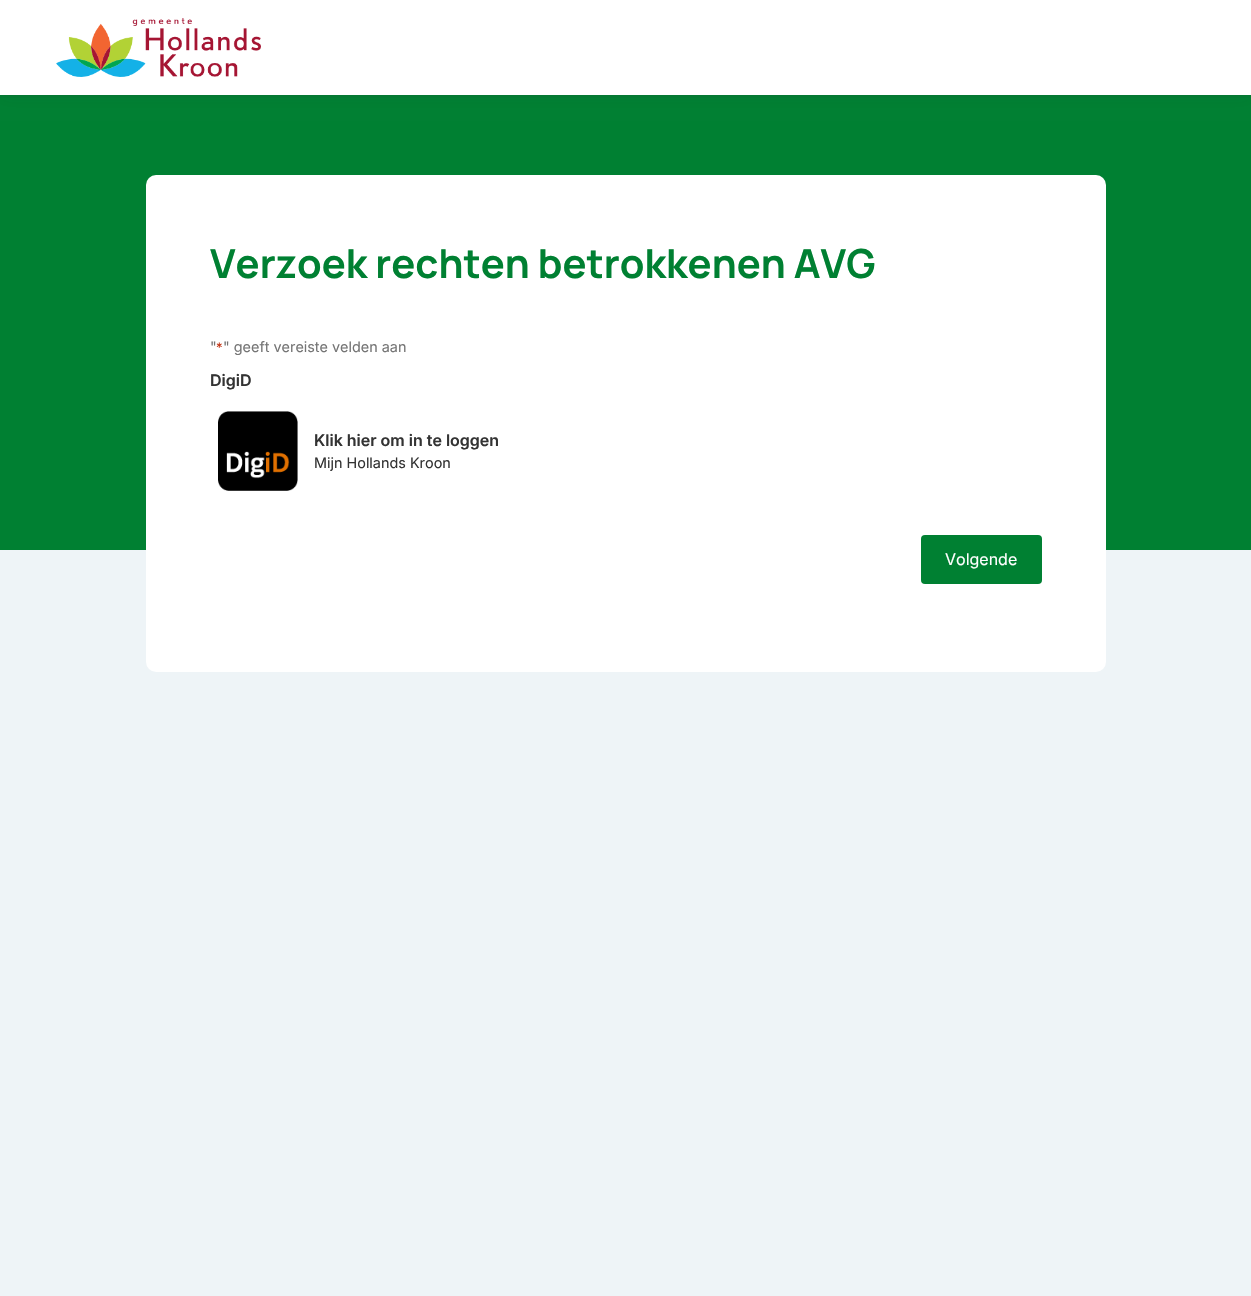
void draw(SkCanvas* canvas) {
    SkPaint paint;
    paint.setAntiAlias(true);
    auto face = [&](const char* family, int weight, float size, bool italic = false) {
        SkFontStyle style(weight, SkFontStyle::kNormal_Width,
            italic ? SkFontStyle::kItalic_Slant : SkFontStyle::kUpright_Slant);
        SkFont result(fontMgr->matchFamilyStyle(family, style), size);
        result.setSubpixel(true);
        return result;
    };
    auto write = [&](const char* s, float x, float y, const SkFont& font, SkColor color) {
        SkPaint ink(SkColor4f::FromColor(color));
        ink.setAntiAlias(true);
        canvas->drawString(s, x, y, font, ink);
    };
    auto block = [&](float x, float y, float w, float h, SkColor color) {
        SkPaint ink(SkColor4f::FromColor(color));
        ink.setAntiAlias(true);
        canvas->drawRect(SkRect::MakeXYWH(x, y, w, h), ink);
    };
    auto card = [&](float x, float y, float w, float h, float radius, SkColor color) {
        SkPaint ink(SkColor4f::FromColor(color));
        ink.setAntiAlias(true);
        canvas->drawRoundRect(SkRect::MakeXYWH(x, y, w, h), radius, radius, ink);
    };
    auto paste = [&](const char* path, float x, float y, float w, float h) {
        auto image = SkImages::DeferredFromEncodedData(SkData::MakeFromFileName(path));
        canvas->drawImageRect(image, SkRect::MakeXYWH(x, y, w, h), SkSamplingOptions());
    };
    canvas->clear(SkColorSetRGB(238, 244, 247));
    block(0, 95, 1251, 455, SkColorSetRGB(0, 128, 50));
    paint.setColor(SkColorSetARGB(20, 40, 44, 53));
    paint.setMaskFilter(SkMaskFilter::MakeBlur(kNormal_SkBlurStyle, 1));
    canvas->drawRect(SkRect::MakeXYWH(0, 2, 1251, 95), paint);
    paint.setMaskFilter(nullptr);
    paint.setColor(SkColorSetARGB(15, 40, 44, 53));
    paint.setMaskFilter(SkMaskFilter::MakeBlur(kNormal_SkBlurStyle, 7.5f));
    canvas->drawRect(SkRect::MakeXYWH(0, 4, 1251, 95), paint);
    paint.setMaskFilter(nullptr);
    block(0, 0, 1251, 95, SK_ColorWHITE);
    paste("pic1.png", 56, 18, 205, 59);
    card(146, 175, 960, 497, 10, SK_ColorWHITE);
    auto kFont1 = face("Manrope", 200, 40);
    write("Verzoek rechten betrokkenen AVG", 210, 278, kFont1, SkColorSetRGB(0, 128, 50));
    auto kFont2 = face("Inter", 400, 14.4f);
    write("\"", 210, 352, kFont2, SkColorSetRGB(117, 117, 117));
    auto kFont3 = face("Inter", 400, 13);
    write("*", 216, 352, kFont3, SkColorSetRGB(192, 43, 10));
    write("\" geeft vereiste velden aan", 223, 352, kFont2, SkColorSetRGB(117, 117, 117));
    auto kFont4 = face("Inter", 600, 16);
    write("DigiD", 210, 386, kFont4, SkColorSetRGB(51, 51, 51));
    paste("pic2.png", 218, 411, 80, 80);
    write("Klik hier om in te loggen", 314, 446, kFont4, SkColorSetRGB(51, 51, 51));
    write("Mijn Hollands Kroon", 314, 468, kFont2, SkColorSetRGB(51, 51, 51));
    card(921, 535, 121, 49, 4, SkColorSetRGB(0, 128, 50));
    auto kFont5 = face("Inter", 400, 16);
    write("Volgende", 945, 565, kFont5, SK_ColorWHITE);
}
